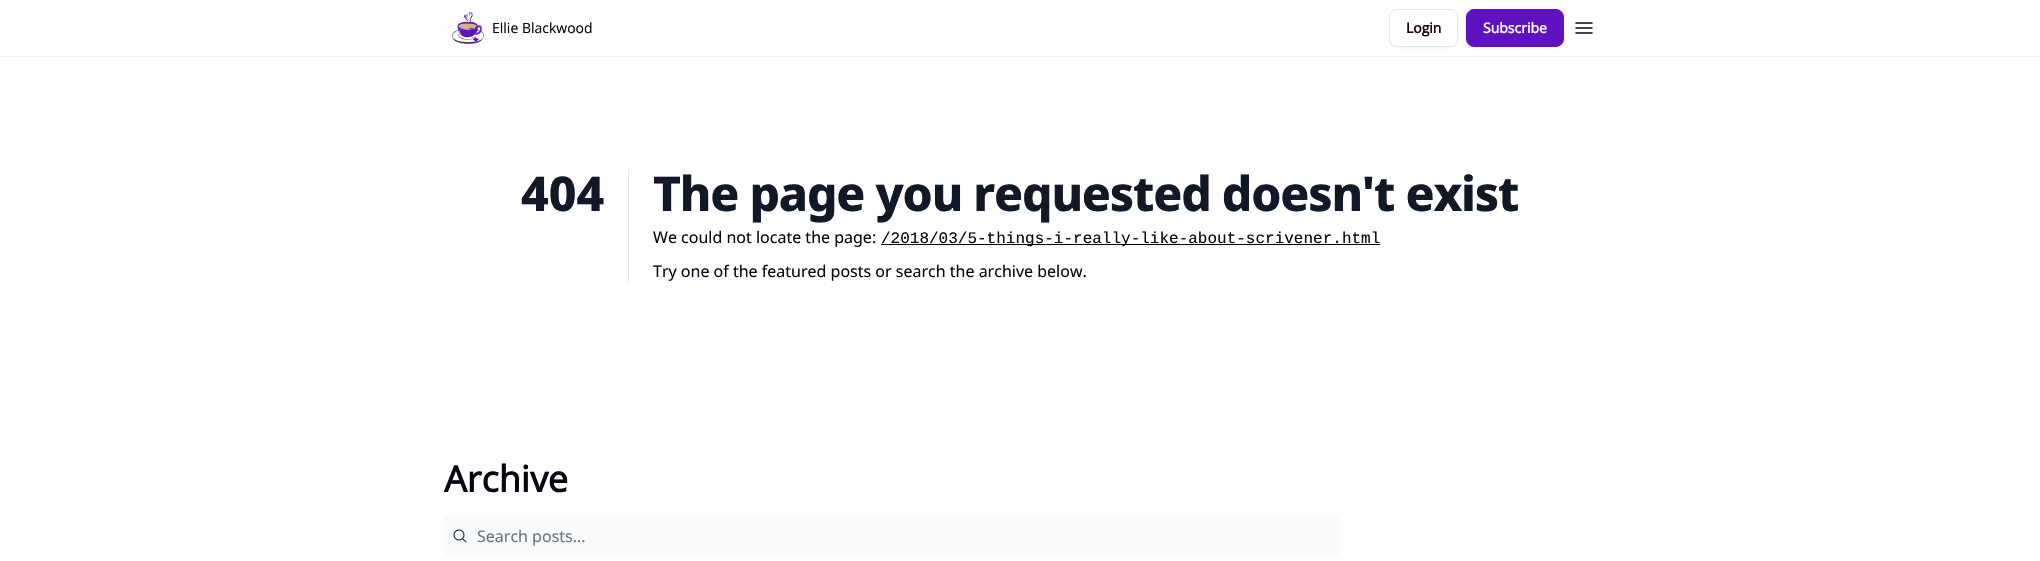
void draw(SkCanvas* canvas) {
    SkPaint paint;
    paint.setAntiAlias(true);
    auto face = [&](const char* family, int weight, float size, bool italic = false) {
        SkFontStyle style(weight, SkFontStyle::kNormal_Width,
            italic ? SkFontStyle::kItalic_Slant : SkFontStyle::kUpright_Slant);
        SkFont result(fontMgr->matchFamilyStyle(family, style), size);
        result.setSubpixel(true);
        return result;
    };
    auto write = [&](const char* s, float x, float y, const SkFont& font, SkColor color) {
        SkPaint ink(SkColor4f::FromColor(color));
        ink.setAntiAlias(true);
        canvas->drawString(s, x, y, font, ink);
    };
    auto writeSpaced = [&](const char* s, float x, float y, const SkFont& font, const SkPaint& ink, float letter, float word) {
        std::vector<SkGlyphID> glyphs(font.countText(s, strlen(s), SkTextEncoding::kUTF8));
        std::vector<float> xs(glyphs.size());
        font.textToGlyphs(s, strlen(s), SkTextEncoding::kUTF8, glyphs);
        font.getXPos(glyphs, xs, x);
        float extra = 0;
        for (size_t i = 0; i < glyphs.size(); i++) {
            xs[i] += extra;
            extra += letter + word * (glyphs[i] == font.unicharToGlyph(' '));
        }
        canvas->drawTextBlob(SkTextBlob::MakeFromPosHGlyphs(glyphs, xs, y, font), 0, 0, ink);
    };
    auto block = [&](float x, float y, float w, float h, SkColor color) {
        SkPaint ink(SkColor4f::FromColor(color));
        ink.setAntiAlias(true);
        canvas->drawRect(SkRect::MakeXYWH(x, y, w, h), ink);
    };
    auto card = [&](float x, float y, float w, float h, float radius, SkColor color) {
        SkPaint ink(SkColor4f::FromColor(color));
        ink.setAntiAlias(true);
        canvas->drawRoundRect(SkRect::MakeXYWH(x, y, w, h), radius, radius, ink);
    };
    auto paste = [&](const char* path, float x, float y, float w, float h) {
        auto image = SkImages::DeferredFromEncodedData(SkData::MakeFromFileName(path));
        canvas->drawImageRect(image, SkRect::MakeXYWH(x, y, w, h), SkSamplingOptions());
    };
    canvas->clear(SK_ColorWHITE);
    paste("pic1.png", 452, 12, 32, 32);
    auto kFont1 = face("Open Sans", 400, 14);
    write("Ellie Blackwood", 492, 33, kFont1, SkColorSetRGB(3, 7, 18));
    paint.setColor(SkColorSetARGB(13, 0, 0, 0));
    paint.setMaskFilter(SkMaskFilter::MakeBlur(kNormal_SkBlurStyle, 1));
    canvas->drawRoundRect(SkRect::MakeXYWH(1389, 10, 69, 38), 8, 8, paint);
    paint.setMaskFilter(nullptr);
    paint.setColor(SK_ColorWHITE);
    canvas->drawRoundRect(SkRect::MakeXYWH(1389.5f, 9.5f, 68, 37), 7.5f, 7.5f, paint);
    paint.setStyle(SkPaint::kStroke_Style);
    paint.setStrokeWidth(1);
    paint.setColor(SkColorSetRGB(229, 231, 235));
    canvas->drawRoundRect(SkRect::MakeXYWH(1389.5f, 9.5f, 68, 37), 7.5f, 7.5f, paint);
    auto kFont2 = face("Open Sans", 700, 14);
    write("Login", 1406, 33, kFont2, SkColorSetRGB(25, 3, 3));
    paint.setStyle(SkPaint::kFill_Style);
    paint.setColor(SkColorSetARGB(13, 0, 0, 0));
    paint.setMaskFilter(SkMaskFilter::MakeBlur(kNormal_SkBlurStyle, 1));
    canvas->drawRoundRect(SkRect::MakeXYWH(1466, 10, 98, 38), 8, 8, paint);
    paint.setMaskFilter(nullptr);
    paint.setColor(SkColorSetRGB(95, 17, 194));
    canvas->drawRoundRect(SkRect::MakeXYWH(1466.5f, 9.5f, 97, 37), 7.5f, 7.5f, paint);
    paint.setStyle(SkPaint::kStroke_Style);
    canvas->drawRoundRect(SkRect::MakeXYWH(1466.5f, 9.5f, 97, 37), 7.5f, 7.5f, paint);
    write("Subscribe", 1483, 33, kFont2, SkColorSetRGB(249, 250, 251));
    paint.setStrokeWidth(1.5f);
    paint.setStrokeCap(SkPaint::kRound_Cap);
    paint.setStrokeJoin(SkPaint::kRound_Join);
    paint.setColor(SkColorSetRGB(3, 7, 18));
    canvas->drawPath(SkPathBuilder().moveTo(1576, 23).lineTo(1592, 23).moveTo(1576, 28).lineTo(1592, 28).moveTo(1576, 33).lineTo(1592, 33).detach(), paint);
    block(0, 56, 2040, 1, SkColorSetRGB(242, 243, 243));
    auto kFont3 = face("Noto Sans", 800, 48);
    write("404", 521, 211, kFont3, SkColorSetRGB(17, 24, 39));
    block(628, 169, 1, 114, SkColorSetRGB(229, 231, 235));
    paint.setStyle(SkPaint::kFill_Style);
    paint.setColor(SkColorSetRGB(17, 24, 39));
    writeSpaced("The page you requested doesn't exist", 653, 211, kFont3, paint, -1.2f, 0);
    auto kFont4 = face("Noto Sans", 400, 16);
    write("We could not locate the page:", 653, 243, kFont4, SkColorSetRGB(3, 7, 18));
    block(881, 244, 499, 1, SkColorSetRGB(3, 7, 18));
    auto kFont5 = face("Liberation Mono", 400, 16);
    write("/2018/03/5-things-i-really-like-about-scrivener.html", 881, 243, kFont5, SkColorSetRGB(3, 7, 18));
    write("Try one of the featured posts or search the archive below.", 653, 277, kFont4, SkColorSetRGB(3, 7, 18));
    auto kFont6 = face("Open Sans", 700, 36);
    write("Archive", 444, 492, kFont6, SkColorSetRGB(3, 7, 18));
    card(444, 515, 896, 42, 8, SkColorSetRGB(249, 250, 251));
    paste("pic2.png", 453, 529, 14, 14);
    write("Search posts...", 477, 542, kFont4, SkColorSetRGB(107, 114, 128));
}
